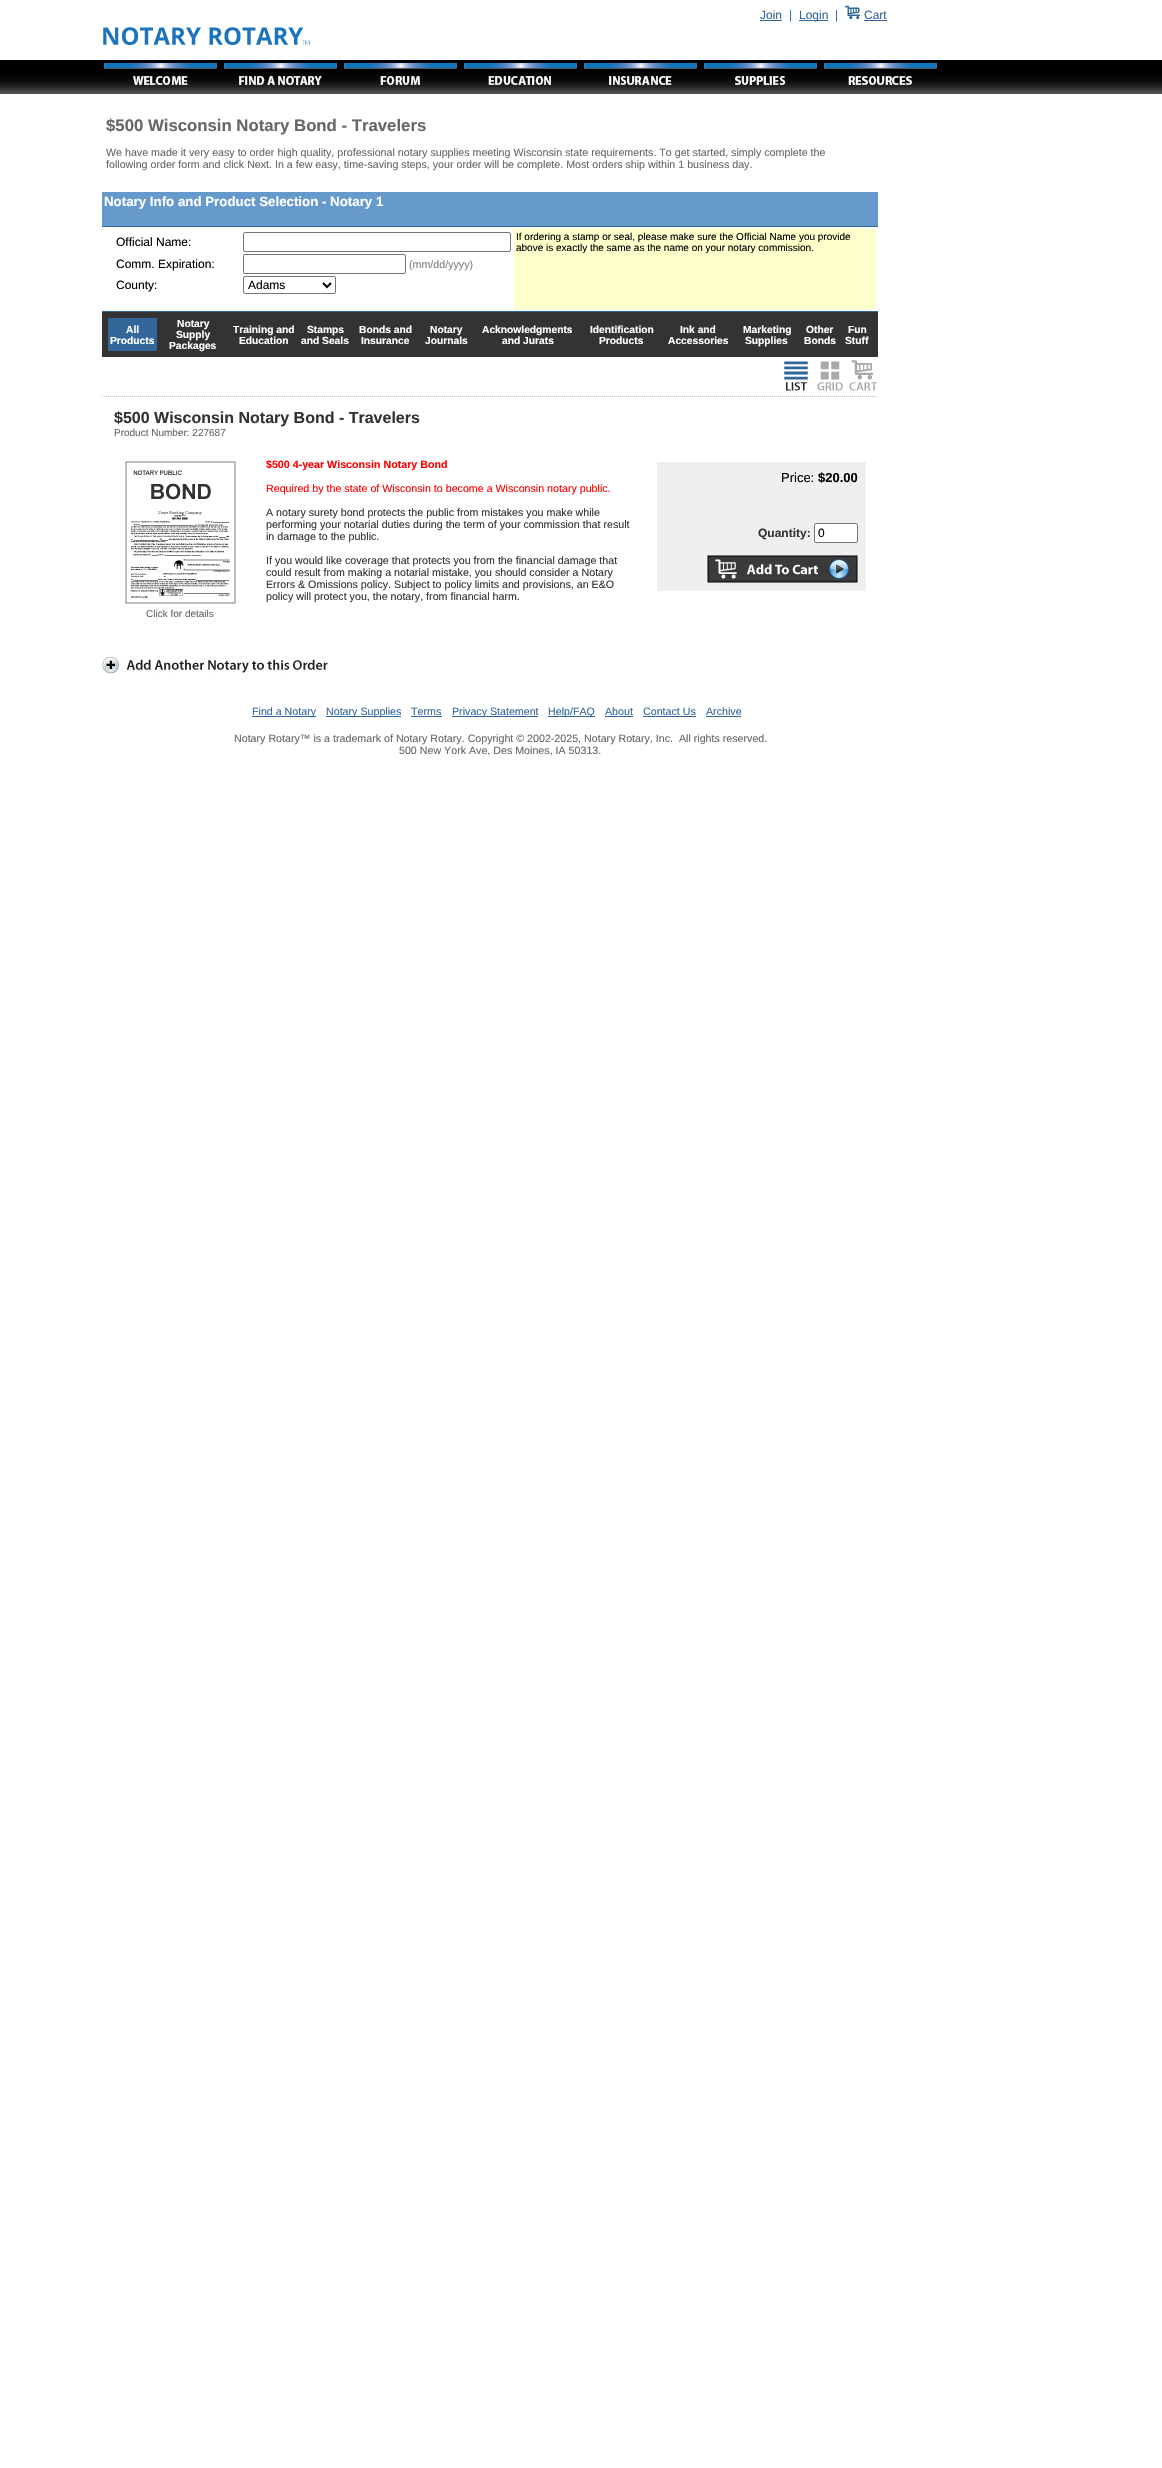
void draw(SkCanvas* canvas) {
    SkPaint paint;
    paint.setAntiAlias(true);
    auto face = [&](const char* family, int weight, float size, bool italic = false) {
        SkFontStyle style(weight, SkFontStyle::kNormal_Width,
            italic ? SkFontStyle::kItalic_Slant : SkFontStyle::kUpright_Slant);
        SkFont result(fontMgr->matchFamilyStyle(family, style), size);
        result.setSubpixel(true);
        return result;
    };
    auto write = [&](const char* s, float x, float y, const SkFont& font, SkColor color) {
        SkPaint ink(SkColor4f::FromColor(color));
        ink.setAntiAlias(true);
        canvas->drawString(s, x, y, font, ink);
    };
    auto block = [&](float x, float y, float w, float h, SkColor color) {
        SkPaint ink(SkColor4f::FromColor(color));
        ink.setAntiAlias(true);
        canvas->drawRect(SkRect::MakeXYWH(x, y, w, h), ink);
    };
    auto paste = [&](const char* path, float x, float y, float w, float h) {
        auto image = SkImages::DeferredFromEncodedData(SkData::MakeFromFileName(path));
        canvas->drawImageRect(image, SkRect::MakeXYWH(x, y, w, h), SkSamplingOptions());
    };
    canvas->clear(SK_ColorWHITE);
    block(0, 60, 100, 15, SK_ColorBLACK);
    paste("pic1.png", 0, 75, 100, 19);
    auto kFont1 = face("Liberation Sans", 400, 12);
    write("Join", 760, 19, kFont1, SkColorSetRGB(51, 102, 153));
    block(760, 20, 22, 1, SkColorSetRGB(51, 102, 153));
    write("|", 789, 19, kFont1, SkColorSetRGB(51, 102, 153));
    block(799, 20, 29, 1, SkColorSetRGB(51, 102, 153));
    write("Login", 799, 19, kFont1, SkColorSetRGB(51, 102, 153));
    write("|", 835, 19, kFont1, SkColorSetRGB(51, 102, 153));
    paste("pic2.png", 845, 5, 15, 14);
    write("Cart", 864, 19, kFont1, SkColorSetRGB(51, 102, 153));
    block(864, 20, 23, 1, SkColorSetRGB(51, 102, 153));
    paste("pic3.png", 103, 27, 207, 18);
    paste("pic4.png", 100, 60, 120, 34);
    paste("pic5.png", 220, 60, 120, 34);
    paste("pic6.png", 340, 60, 120, 34);
    paste("pic7.png", 460, 60, 120, 34);
    paste("pic8.png", 580, 60, 120, 34);
    paste("pic9.png", 700, 60, 120, 34);
    paste("pic10.png", 820, 60, 120, 34);
    block(940, 60, 222, 15, SK_ColorBLACK);
    paste("pic11.png", 940, 75, 222, 19);
    auto kFont2 = face("Liberation Sans", 700, 16.75f);
    write("$500 Wisconsin Notary Bond - Travelers", 106, 131, kFont2, SkColorSetRGB(102, 102, 102));
    auto kFont3 = face("Liberation Sans", 400, 10.67f);
    write("We have made it very easy to order high quality, professional notary supplies meeting Wisconsin state requirements. To get started, simply complete the", 106, 156, kFont3, SkColorSetRGB(102, 102, 102));
    write("following order form and click Next. In a few easy, time-saving steps, your order will be complete. Most orders ship within 1 business day.", 106, 168, kFont3, SkColorSetRGB(102, 102, 102));
    block(102, 192, 776, 34, SkColorSetRGB(102, 153, 204));
    block(102, 226, 776, 1, SkColorSetRGB(51, 102, 153));
    auto kFont4 = face("Liberation Sans", 700, 13.3f);
    write("Notary Info and Product Selection - Notary 1", 104, 206, kFont4, SK_ColorWHITE);
    block(102, 311, 776, 1, SkColorSetRGB(51, 102, 153));
    write("Official Name:", 116, 246, kFont1, SK_ColorBLACK);
    paint.setStyle(SkPaint::kStroke_Style);
    paint.setStrokeWidth(1);
    paint.setColor(SkColorSetRGB(118, 118, 118));
    canvas->drawRoundRect(SkRect::MakeXYWH(243.5f, 232.5f, 267, 19), 1.5f, 1.5f, paint);
    write("Comm. Expiration:", 116, 268, kFont1, SK_ColorBLACK);
    canvas->drawRoundRect(SkRect::MakeXYWH(243.5f, 254.5f, 162, 19), 1.5f, 1.5f, paint);
    write("(mm/dd/yyyy)", 409, 268, kFont3, SkColorSetRGB(128, 128, 128));
    write("County:", 116, 289, kFont1, SK_ColorBLACK);
    canvas->drawRoundRect(SkRect::MakeXYWH(243.5f, 276.5f, 92, 17), 1.5f, 1.5f, paint);
    paint.setStrokeWidth(2);
    paint.setColor(SK_ColorBLACK);
    canvas->drawPath(SkPathBuilder().moveTo(323, 283).lineTo(327, 287).lineTo(331, 283).detach(), paint);
    write("Adams", 248, 289, kFont1, SK_ColorBLACK);
    block(514, 229, 362, 80, SkColorSetRGB(255, 255, 204));
    auto kFont5 = face("Liberation Sans", 400, 10);
    write("If ordering a stamp or seal, please make sure the Official Name you provide", 516, 240, kFont5, SK_ColorBLACK);
    write("above is exactly the same as the name on your notary commission.", 516, 251, kFont5, SK_ColorBLACK);
    block(102, 312, 776, 45, SkColorSetRGB(51, 51, 51));
    block(108, 318, 49, 33, SkColorSetRGB(51, 102, 153));
    auto kFont6 = face("Liberation Sans", 700, 10.25f);
    write("All", 126, 333, kFont6, SK_ColorWHITE);
    write("Products", 110, 344, kFont6, SK_ColorWHITE);
    write("Notary", 177, 327, kFont6, SK_ColorWHITE);
    write("Supply", 176, 338, kFont6, SK_ColorWHITE);
    write("Packages", 169, 349, kFont6, SK_ColorWHITE);
    write("Training and", 233, 333, kFont6, SK_ColorWHITE);
    write("Education", 239, 344, kFont6, SK_ColorWHITE);
    write("Stamps", 307, 333, kFont6, SK_ColorWHITE);
    write("and Seals", 301, 344, kFont6, SK_ColorWHITE);
    write("Bonds and", 359, 333, kFont6, SK_ColorWHITE);
    write("Insurance", 361, 344, kFont6, SK_ColorWHITE);
    write("Notary", 430, 333, kFont6, SK_ColorWHITE);
    write("Journals", 425, 344, kFont6, SK_ColorWHITE);
    write("Acknowledgments", 482, 333, kFont6, SK_ColorWHITE);
    write("and Jurats", 502, 344, kFont6, SK_ColorWHITE);
    write("Identification", 590, 333, kFont6, SK_ColorWHITE);
    write("Products", 599, 344, kFont6, SK_ColorWHITE);
    write("Ink and", 680, 333, kFont6, SK_ColorWHITE);
    write("Accessories", 668, 344, kFont6, SK_ColorWHITE);
    write("Marketing", 743, 333, kFont6, SK_ColorWHITE);
    write("Supplies", 745, 344, kFont6, SK_ColorWHITE);
    write("Other", 806, 333, kFont6, SK_ColorWHITE);
    write("Bonds", 804, 344, kFont6, SK_ColorWHITE);
    write("Fun", 848, 333, kFont6, SK_ColorWHITE);
    write("Stuff", 845, 344, kFont6, SK_ColorWHITE);
    paste("pic12.png", 784, 361, 24, 30);
    paste("pic13.png", 817, 361, 26, 30);
    paste("pic14.png", 849, 360, 28, 31);
    paint.setStrokeWidth(1);
    paint.setColor(SkColorSetRGB(192, 192, 192));
    paint.setPathEffect(SkDashPathEffect::Make({{1, 1}}, 0));
    canvas->drawPath(SkPathBuilder().moveTo(102, 396.5f).lineTo(878, 396.5f).detach(), paint);
    paint.setPathEffect(nullptr);
    auto kFont7 = face("Liberation Sans", 700, 16);
    write("$500 Wisconsin Notary Bond - Travelers", 114, 423, kFont7, SkColorSetRGB(51, 51, 51));
    write("Product Number: 227687", 114, 436, kFont5, SkColorSetRGB(102, 102, 102));
    auto kFont8 = face("Liberation Sans", 700, 10.67f);
    write("$500 4-year Wisconsin Notary Bond", 266, 468, kFont8, SkColorSetRGB(255, 0, 0));
    write("Required by the state of Wisconsin to become a Wisconsin notary public.", 266, 492, kFont3, SkColorSetRGB(255, 0, 0));
    write("A notary surety bond protects the public from mistakes you make while", 266, 516, kFont3, SkColorSetRGB(51, 51, 51));
    write("performing your notarial duties during the term of your commission that result", 266, 528, kFont3, SkColorSetRGB(51, 51, 51));
    write("in damage to the public.", 266, 540, kFont3, SkColorSetRGB(51, 51, 51));
    write("If you would like coverage that protects you from the financial damage that", 266, 564, kFont3, SkColorSetRGB(51, 51, 51));
    write("could result from making a notarial mistake, you should consider a Notary", 266, 576, kFont3, SkColorSetRGB(51, 51, 51));
    write("Errors & Omissions policy. Subject to policy limits and provisions, an E&O", 266, 588, kFont3, SkColorSetRGB(51, 51, 51));
    write("policy will protect you, the notary, from financial harm.", 266, 600, kFont3, SkColorSetRGB(51, 51, 51));
    block(657, 462, 209, 129, SkColorSetRGB(239, 239, 239));
    auto kFont9 = face("Liberation Sans", 400, 13);
    write("Price:", 781, 482, kFont9, SK_ColorBLACK);
    auto kFont10 = face("Liberation Sans", 700, 13);
    write("$20.00", 818, 482, kFont10, SK_ColorBLACK);
    auto kFont11 = face("Liberation Sans", 700, 12);
    write("Quantity:", 758, 537, kFont11, SkColorSetRGB(51, 51, 51));
    paint.setStyle(SkPaint::kFill_Style);
    paint.setColor(SK_ColorWHITE);
    canvas->drawRoundRect(SkRect::MakeXYWH(814.5f, 523.5f, 43, 19), 1.5f, 1.5f, paint);
    paint.setStyle(SkPaint::kStroke_Style);
    paint.setColor(SkColorSetRGB(118, 118, 118));
    canvas->drawRoundRect(SkRect::MakeXYWH(814.5f, 523.5f, 43, 19), 1.5f, 1.5f, paint);
    write("0", 818, 537, kFont1, SK_ColorBLACK);
    paste("pic15.png", 707, 555, 151, 28);
    paste("pic16.png", 125, 461, 111, 143);
    write("Click for details", 146, 617, kFont5, SkColorSetRGB(102, 102, 102));
    paste("pic17.png", 102, 657, 226, 17);
    block(252, 716, 64, 1, SkColorSetRGB(51, 102, 153));
    write("Find a Notary", 252, 715, kFont3, SkColorSetRGB(51, 102, 153));
    block(326, 716, 75, 1, SkColorSetRGB(51, 102, 153));
    write("Notary Supplies", 326, 715, kFont3, SkColorSetRGB(51, 102, 153));
    write("Terms", 411, 715, kFont3, SkColorSetRGB(51, 102, 153));
    block(411, 716, 31, 1, SkColorSetRGB(51, 102, 153));
    block(452, 716, 86, 1, SkColorSetRGB(51, 102, 153));
    write("Privacy Statement", 452, 715, kFont3, SkColorSetRGB(51, 102, 153));
    block(548, 716, 47, 1, SkColorSetRGB(51, 102, 153));
    write("Help/FAQ", 548, 715, kFont3, SkColorSetRGB(51, 102, 153));
    write("About", 605, 715, kFont3, SkColorSetRGB(51, 102, 153));
    block(605, 716, 28, 1, SkColorSetRGB(51, 102, 153));
    write("Contact Us", 643, 715, kFont3, SkColorSetRGB(51, 102, 153));
    block(643, 716, 53, 1, SkColorSetRGB(51, 102, 153));
    write("Archive", 706, 715, kFont3, SkColorSetRGB(51, 102, 153));
    block(706, 716, 35, 1, SkColorSetRGB(51, 102, 153));
    write("Notary Rotary™ is a trademark of Notary Rotary. Copyright © 2002-2025, Notary Rotary, Inc.  All rights reserved.", 234, 742, kFont3, SkColorSetRGB(102, 102, 102));
    write("500 New York Ave, Des Moines, IA 50313.", 399, 754, kFont3, SkColorSetRGB(102, 102, 102));
}
